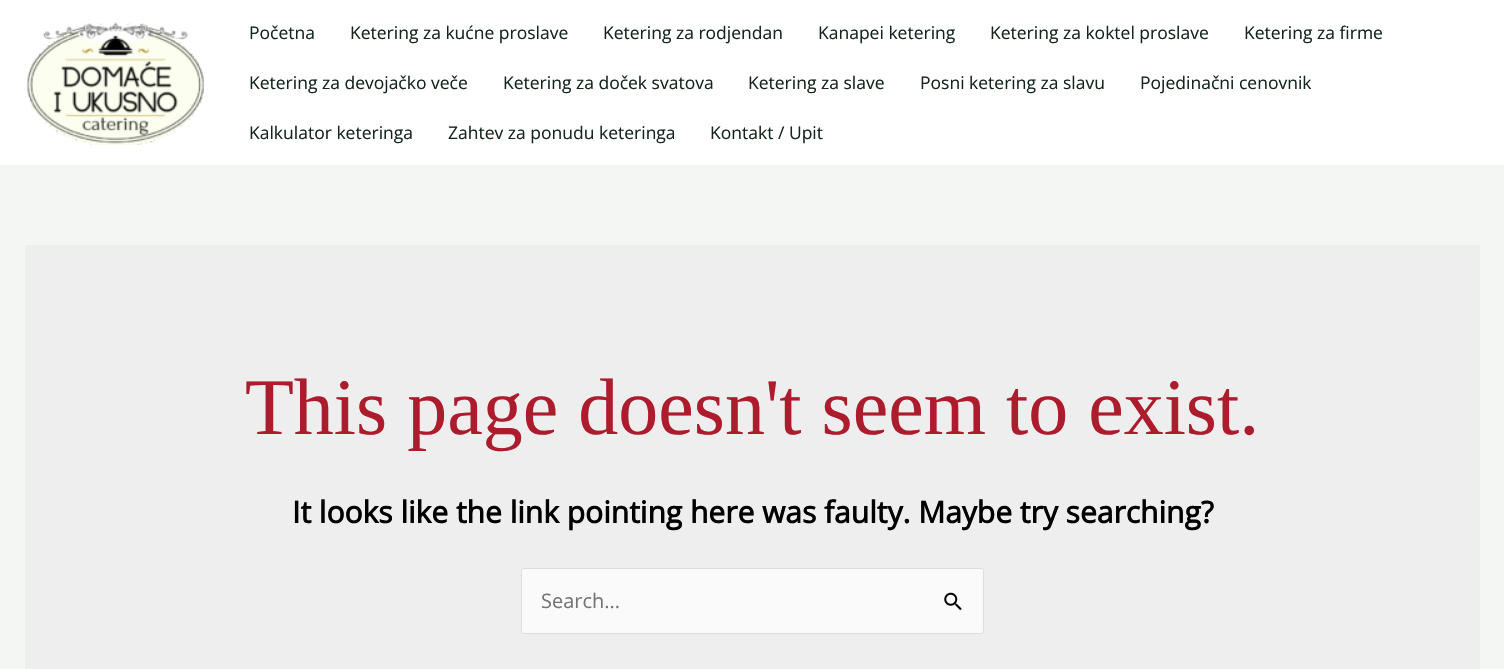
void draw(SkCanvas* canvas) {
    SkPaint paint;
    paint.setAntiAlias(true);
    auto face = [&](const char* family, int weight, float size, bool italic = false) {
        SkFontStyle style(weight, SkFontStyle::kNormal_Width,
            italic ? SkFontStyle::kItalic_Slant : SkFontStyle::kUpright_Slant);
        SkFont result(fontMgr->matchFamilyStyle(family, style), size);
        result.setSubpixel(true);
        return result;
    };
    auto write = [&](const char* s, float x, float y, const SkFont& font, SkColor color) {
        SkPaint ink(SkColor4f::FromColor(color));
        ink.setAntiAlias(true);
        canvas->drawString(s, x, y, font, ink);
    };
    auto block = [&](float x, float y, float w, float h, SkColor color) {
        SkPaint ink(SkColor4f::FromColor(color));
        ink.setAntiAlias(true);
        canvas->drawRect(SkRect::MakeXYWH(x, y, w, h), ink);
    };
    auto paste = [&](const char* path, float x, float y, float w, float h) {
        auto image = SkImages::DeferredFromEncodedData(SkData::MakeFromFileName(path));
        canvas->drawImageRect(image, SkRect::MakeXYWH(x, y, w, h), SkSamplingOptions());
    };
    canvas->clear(SkColorSetRGB(244, 246, 244));
    block(0, 0, 1504, 165, SK_ColorWHITE);
    paste("pic1.png", 26, 22, 178, 123);
    auto kFont1 = face("Open Sans", 400, 17.5f);
    write("Početna", 249, 39, kFont1, SkColorSetRGB(20, 38, 28));
    write("Ketering za kućne proslave", 350, 39, kFont1, SkColorSetRGB(20, 38, 28));
    write("Ketering za rodjendan", 603, 39, kFont1, SkColorSetRGB(20, 38, 28));
    write("Kanapei ketering", 818, 39, kFont1, SkColorSetRGB(20, 38, 28));
    write("Ketering za koktel proslave", 990, 39, kFont1, SkColorSetRGB(20, 38, 28));
    write("Ketering za firme", 1244, 39, kFont1, SkColorSetRGB(20, 38, 28));
    write("Ketering za devojačko veče", 249, 89, kFont1, SkColorSetRGB(20, 38, 28));
    write("Ketering za doček svatova", 503, 89, kFont1, SkColorSetRGB(20, 38, 28));
    write("Ketering za slave", 748, 89, kFont1, SkColorSetRGB(20, 38, 28));
    write("Posni ketering za slavu", 920, 89, kFont1, SkColorSetRGB(20, 38, 28));
    write("Pojedinačni cenovnik", 1140, 89, kFont1, SkColorSetRGB(20, 38, 28));
    write("Kalkulator keteringa", 249, 139, kFont1, SkColorSetRGB(20, 38, 28));
    write("Zahtev za ponudu keteringa", 448, 139, kFont1, SkColorSetRGB(20, 38, 28));
    write("Kontakt / Upit", 710, 139, kFont1, SkColorSetRGB(20, 38, 28));
    block(25, 245, 1455, 424, SkColorSetRGB(238, 238, 238));
    auto kFont2 = face("Liberation Serif", 400, 80);
    write("This page doesn't seem to exist.", 245, 434, kFont2, SkColorSetRGB(173, 28, 45));
    auto kFont3 = face("Open Sans", 700, 30);
    write("It looks like the link pointing here was faulty. Maybe try searching?", 292, 523, kFont3, SK_ColorBLACK);
    paint.setColor(SkColorSetRGB(250, 250, 250));
    canvas->drawRoundRect(SkRect::MakeXYWH(521.5f, 568.5f, 462, 65), 2, 2, paint);
    paint.setStyle(SkPaint::kStroke_Style);
    paint.setStrokeWidth(1);
    paint.setColor(SkColorSetRGB(221, 221, 221));
    canvas->drawRoundRect(SkRect::MakeXYWH(521.5f, 568.5f, 462, 65), 2, 2, paint);
    auto kFont4 = face("Open Sans", 400, 20);
    write("Search...", 541, 608, kFont4, SkColorSetRGB(117, 117, 117));
    paste("pic2.png", 944, 592, 18, 19);
}
